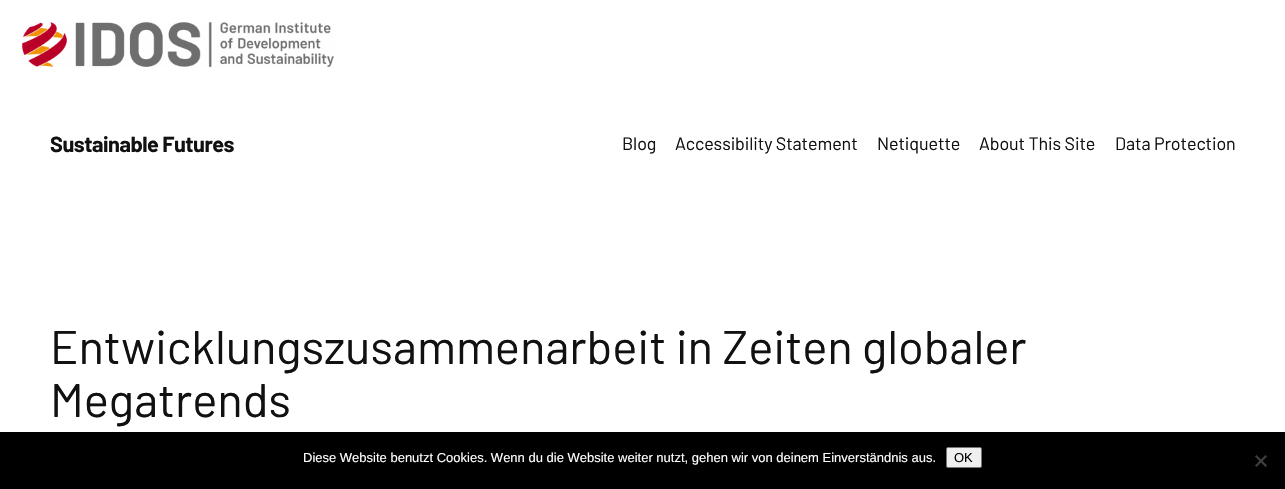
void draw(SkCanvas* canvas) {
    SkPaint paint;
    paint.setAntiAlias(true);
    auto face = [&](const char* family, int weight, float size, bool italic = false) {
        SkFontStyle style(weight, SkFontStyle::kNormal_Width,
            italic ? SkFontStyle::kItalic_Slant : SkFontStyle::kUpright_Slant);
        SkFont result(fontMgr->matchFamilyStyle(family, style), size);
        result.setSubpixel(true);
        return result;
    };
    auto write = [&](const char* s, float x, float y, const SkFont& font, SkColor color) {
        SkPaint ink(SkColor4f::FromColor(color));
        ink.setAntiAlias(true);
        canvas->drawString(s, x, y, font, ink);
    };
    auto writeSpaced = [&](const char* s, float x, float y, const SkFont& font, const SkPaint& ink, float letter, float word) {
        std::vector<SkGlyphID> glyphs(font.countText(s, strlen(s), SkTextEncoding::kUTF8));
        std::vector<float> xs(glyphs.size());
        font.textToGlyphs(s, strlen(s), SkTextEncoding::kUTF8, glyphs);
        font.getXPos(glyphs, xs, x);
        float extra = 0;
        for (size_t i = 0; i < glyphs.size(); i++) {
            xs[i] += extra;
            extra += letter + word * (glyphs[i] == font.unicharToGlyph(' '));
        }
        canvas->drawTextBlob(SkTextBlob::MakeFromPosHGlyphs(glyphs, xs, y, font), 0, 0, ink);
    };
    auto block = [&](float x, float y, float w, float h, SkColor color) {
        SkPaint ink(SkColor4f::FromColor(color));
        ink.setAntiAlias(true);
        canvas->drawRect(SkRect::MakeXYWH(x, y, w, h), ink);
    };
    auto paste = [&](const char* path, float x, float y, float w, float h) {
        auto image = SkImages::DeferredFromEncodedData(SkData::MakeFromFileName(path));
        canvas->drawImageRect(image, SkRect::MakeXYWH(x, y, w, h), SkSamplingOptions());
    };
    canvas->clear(SK_ColorWHITE);
    paste("pic1.png", 21, 22, 313, 46);
    auto kFont1 = face("Barlow", 700, 21.75f);
    paint.setColor(SkColorSetRGB(17, 17, 17));
    writeSpaced("Sustainable Futures", 50, 152, kFont1, paint, -0.5f, 0);
    auto kFont2 = face("Barlow", 400, 17.9f);
    writeSpaced("Blog", 622, 150, kFont2, paint, -0.1f, 0);
    writeSpaced("Accessibility Statement", 675, 150, kFont2, paint, -0.1f, 0);
    writeSpaced("Netiquette", 877, 150, kFont2, paint, -0.1f, 0);
    writeSpaced("About This Site", 979, 150, kFont2, paint, -0.1f, 0);
    writeSpaced("Data Protection", 1115, 150, kFont2, paint, -0.1f, 0);
    auto kFont3 = face("Barlow", 400, 47.25f);
    writeSpaced("Entwicklungszusammenarbeit in Zeiten globaler", 50, 364, kFont3, paint, -0.1f, 0);
    writeSpaced("Megatrends", 50, 417, kFont3, paint, -0.1f, 0);
    block(0, 432, 1285, 57, SK_ColorBLACK);
    auto kFont4 = face("Liberation Sans", 400, 13);
    write("Diese Website benutzt Cookies. Wenn du die Website weiter nutzt, gehen wir von deinem Einverständnis aus.", 303, 462, kFont4, SK_ColorWHITE);
    paint.setColor(SkColorSetRGB(239, 239, 239));
    canvas->drawRoundRect(SkRect::MakeXYWH(946.5f, 447.5f, 35, 20), 1.5f, 1.5f, paint);
    paint.setStyle(SkPaint::kStroke_Style);
    paint.setStrokeWidth(1);
    paint.setColor(SkColorSetRGB(118, 118, 118));
    canvas->drawRoundRect(SkRect::MakeXYWH(946.5f, 447.5f, 35, 20), 1.5f, 1.5f, paint);
    write("OK", 954, 462, kFont4, SK_ColorBLACK);
    paint.setStyle(SkPaint::kFill_Style);
    paint.setColor(SkColorSetRGB(64, 64, 64));
    canvas->drawPath(SkPathBuilder().moveTo(1265.5f, 455).lineTo(1267, 456.5f).lineTo(1256.5f, 467).lineTo(1255, 465.5f).close().detach(), paint);
    canvas->drawPath(SkPathBuilder().moveTo(1255, 456.5f).lineTo(1256.5f, 455).lineTo(1267, 465.5f).lineTo(1265.5f, 467).close().detach(), paint);
}
